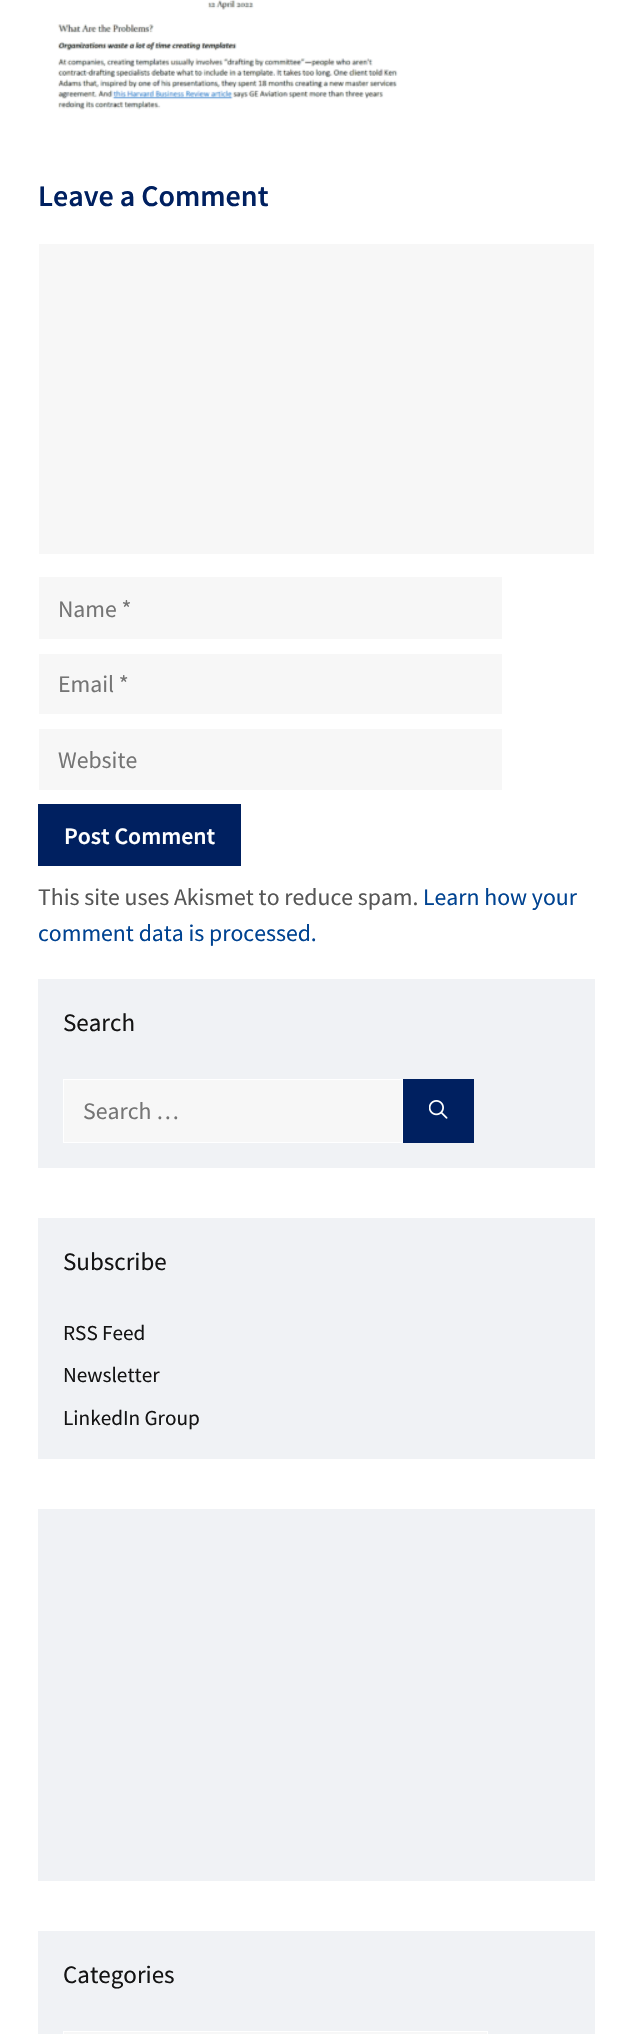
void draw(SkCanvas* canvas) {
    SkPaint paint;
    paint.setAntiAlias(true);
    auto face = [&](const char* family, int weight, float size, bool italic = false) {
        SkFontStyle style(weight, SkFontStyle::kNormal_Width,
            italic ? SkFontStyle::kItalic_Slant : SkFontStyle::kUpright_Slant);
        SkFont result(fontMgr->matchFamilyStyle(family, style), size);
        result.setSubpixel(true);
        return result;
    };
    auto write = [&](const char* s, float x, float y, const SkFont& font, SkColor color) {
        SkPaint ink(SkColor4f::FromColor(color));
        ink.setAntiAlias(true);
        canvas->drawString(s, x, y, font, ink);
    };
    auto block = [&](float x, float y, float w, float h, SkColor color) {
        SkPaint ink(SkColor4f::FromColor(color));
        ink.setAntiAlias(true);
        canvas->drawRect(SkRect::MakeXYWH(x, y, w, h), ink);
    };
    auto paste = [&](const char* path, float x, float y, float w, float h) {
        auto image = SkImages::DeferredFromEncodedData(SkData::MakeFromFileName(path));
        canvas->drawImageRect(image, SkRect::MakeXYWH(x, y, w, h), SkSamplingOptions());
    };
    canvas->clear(SK_ColorWHITE);
    paste("pic1.png", 57, 0, 341, 110);
    auto kFont1 = face("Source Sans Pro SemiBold", 600, 30);
    write("Leave a Comment", 38, 206, kFont1, SkColorSetRGB(0, 32, 96));
    block(39, 244, 555, 310, SkColorSetRGB(247, 247, 247));
    block(39, 577, 463, 62, SkColorSetRGB(247, 247, 247));
    auto kFont2 = face("Source Sans Pro", 400, 23.75f);
    write("Name *", 58, 617, kFont2, SkColorSetRGB(117, 117, 117));
    block(39, 654, 463, 60, SkColorSetRGB(247, 247, 247));
    write("Email *", 58, 692, kFont2, SkColorSetRGB(117, 117, 117));
    block(39, 729, 463, 61, SkColorSetRGB(247, 247, 247));
    write("Website", 58, 768, kFont2, SkColorSetRGB(117, 117, 117));
    block(38, 804, 203, 62, SkColorSetRGB(0, 32, 96));
    auto kFont3 = face("Source Sans Pro SemiBold", 600, 23.75f);
    write("Post Comment", 64, 844, kFont3, SK_ColorWHITE);
    write("This site uses Akismet to reduce spam.", 38, 905, kFont2, SkColorSetRGB(86, 86, 86));
    write("Learn how your", 423, 905, kFont2, SkColorSetRGB(0, 67, 145));
    write("comment data is processed.", 38, 941, kFont2, SkColorSetRGB(0, 67, 145));
    block(38, 979, 557, 189, SkColorSetRGB(240, 242, 245));
    auto kFont4 = face("Source Sans Pro", 400, 25);
    write("Search", 63, 1031, kFont4, SkColorSetRGB(20, 20, 20));
    paint.setColor(SkColorSetRGB(247, 247, 247));
    canvas->drawRect(SkRect::MakeXYWH(63.5f, 1079.5f, 339, 63), paint);
    paint.setStyle(SkPaint::kStroke_Style);
    paint.setStrokeWidth(1);
    paint.setColor(SK_ColorWHITE);
    canvas->drawRect(SkRect::MakeXYWH(63.5f, 1079.5f, 339, 63), paint);
    write("Search …", 83, 1119, kFont2, SkColorSetRGB(117, 117, 117));
    block(403, 1079, 71, 64, SkColorSetRGB(0, 32, 96));
    paste("pic2.png", 429, 1100, 19, 19);
    block(38, 1218, 557, 241, SkColorSetRGB(240, 242, 245));
    write("Subscribe", 63, 1270, kFont4, SkColorSetRGB(20, 20, 20));
    auto kFont5 = face("Source Sans Pro", 400, 21.25f);
    write("RSS Feed", 63, 1340, kFont5, SkColorSetRGB(20, 20, 20));
    write("Newsletter", 63, 1382, kFont5, SkColorSetRGB(20, 20, 20));
    write("LinkedIn Group", 63, 1425, kFont5, SkColorSetRGB(20, 20, 20));
    block(38, 1509, 557, 372, SkColorSetRGB(240, 242, 245));
    block(38, 1931, 557, 103, SkColorSetRGB(240, 242, 245));
    write("Categories", 63, 1983, kFont4, SkColorSetRGB(20, 20, 20));
    paint.setStyle(SkPaint::kFill_Style);
    paint.setColor(SkColorSetRGB(247, 247, 247));
    canvas->drawRect(SkRect::MakeXYWH(63.5f, 2031.5f, 424, 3), paint);
    paint.setStyle(SkPaint::kStroke_Style);
    paint.setColor(SK_ColorWHITE);
    canvas->drawRect(SkRect::MakeXYWH(63.5f, 2031.5f, 424, 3), paint);
}
